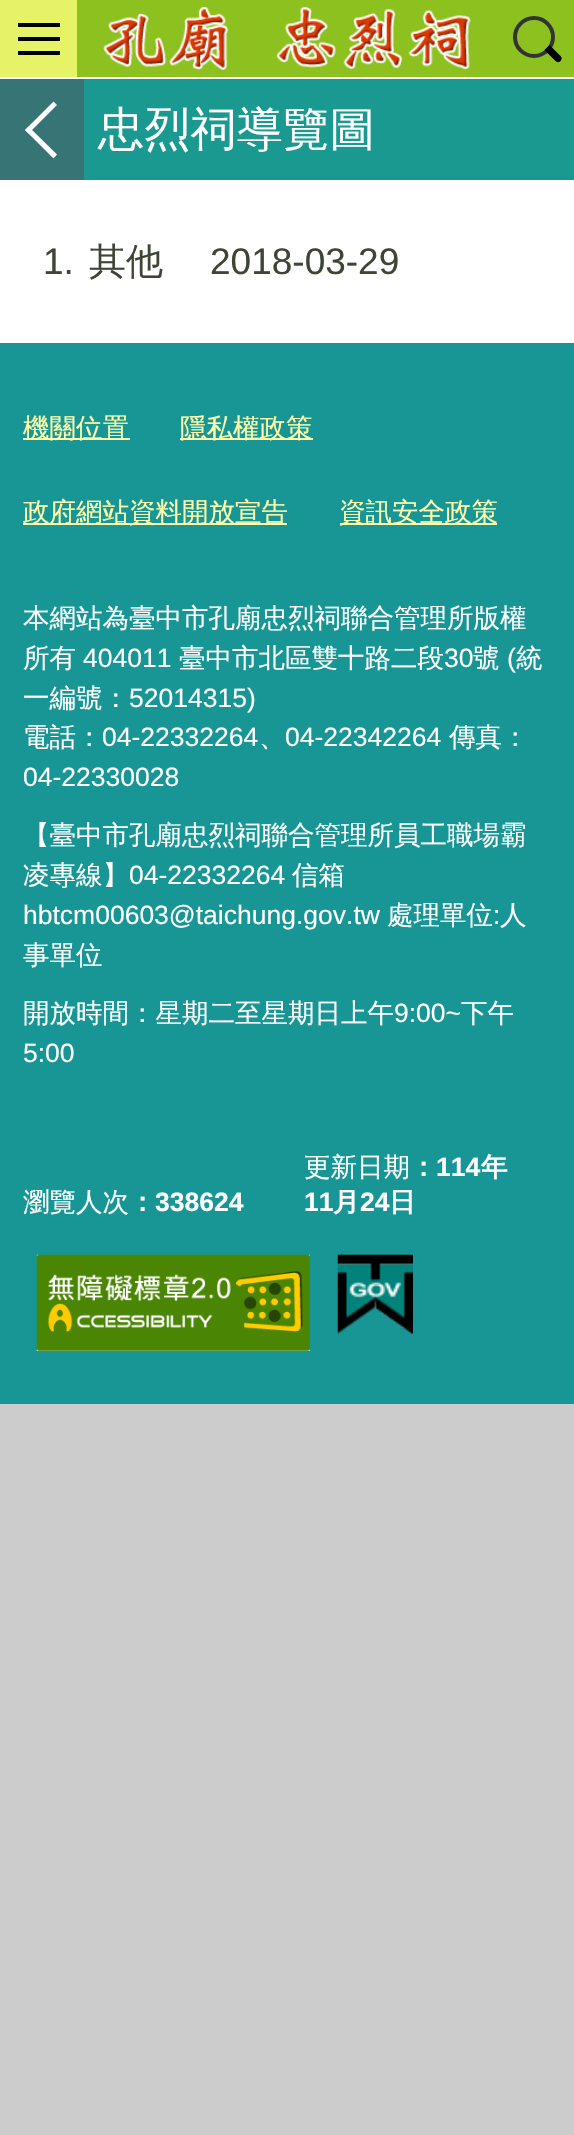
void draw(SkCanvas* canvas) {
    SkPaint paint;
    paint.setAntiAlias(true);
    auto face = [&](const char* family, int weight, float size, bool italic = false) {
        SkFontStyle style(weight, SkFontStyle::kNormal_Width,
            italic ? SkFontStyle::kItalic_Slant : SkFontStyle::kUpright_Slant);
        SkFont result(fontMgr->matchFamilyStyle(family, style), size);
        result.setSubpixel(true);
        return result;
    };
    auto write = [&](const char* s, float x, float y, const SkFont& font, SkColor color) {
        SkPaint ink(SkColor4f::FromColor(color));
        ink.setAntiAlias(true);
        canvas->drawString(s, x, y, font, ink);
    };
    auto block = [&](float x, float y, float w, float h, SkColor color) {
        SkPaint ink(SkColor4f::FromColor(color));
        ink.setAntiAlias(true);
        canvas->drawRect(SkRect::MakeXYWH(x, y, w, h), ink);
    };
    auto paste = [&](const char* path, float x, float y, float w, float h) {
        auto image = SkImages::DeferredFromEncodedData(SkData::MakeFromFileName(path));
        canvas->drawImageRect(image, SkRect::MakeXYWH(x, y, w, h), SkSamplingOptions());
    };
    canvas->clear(SkColorSetRGB(204, 204, 204));
    block(0, 180, 574, 163, SK_ColorWHITE);
    block(77, 0, 497, 77, SkColorSetRGB(140, 193, 31));
    block(0, 77, 574, 2, SK_ColorWHITE);
    block(0, 0, 77, 77, SkColorSetRGB(230, 243, 102));
    block(18, 51, 42, 4, SK_ColorBLACK);
    block(18, 23, 42, 4, SK_ColorBLACK);
    block(18, 37, 42, 4, SK_ColorBLACK);
    paste("pic1.png", 103, 7, 368, 63);
    paint.setStyle(SkPaint::kStroke_Style);
    paint.setStrokeWidth(4);
    paint.setColor(SkColorSetRGB(51, 51, 51));
    canvas->drawCircle(534, 37, 19, paint);
    paint.setStyle(SkPaint::kFill_Style);
    paint.setColor(SK_ColorBLACK);
    canvas->drawPath(SkPathBuilder().moveTo(549.5f, 45).lineTo(560.5f, 56).cubicTo(562, 57.5f, 562, 59.5f, 560.5f, 61).cubicTo(559.5f, 62.5f, 557, 62.5f, 555.5f, 61).lineTo(544.5f, 50).close().detach(), paint);
    block(84, 79, 490, 101, SkColorSetRGB(25, 153, 144));
    block(0, 79, 84, 101, SkColorSetRGB(55, 116, 118));
    paint.setColor(SK_ColorWHITE);
    canvas->drawPath(SkPathBuilder().moveTo(28.5f, 126.5f).lineTo(57, 154.5f).lineTo(53.5f, 158.5f).lineTo(25, 130).close().detach(), paint);
    canvas->drawPath(SkPathBuilder().moveTo(53.5f, 101.5f).lineTo(57, 105).lineTo(28.5f, 133.5f).lineTo(25, 130).close().detach(), paint);
    auto kFont1 = face("WenQuanYi Zen Hei", 500, 46.25f);
    write("忠烈祠導覽圖", 98, 145, kFont1, SK_ColorWHITE);
    auto kFont2 = face("Liberation Sans", 400, 37);
    write("1.", 43, 274, kFont2, SkColorSetRGB(63, 69, 52));
    auto kFont3 = face("WenQuanYi Zen Hei", 500, 37);
    write("其他", 89, 274, kFont3, SkColorSetRGB(63, 69, 52));
    write("2018-03-29", 210, 274, kFont2, SkColorSetRGB(63, 69, 52));
    block(0, 343, 574, 1061, SkColorSetRGB(24, 149, 149));
    block(23, 438, 107, 2, SkColorSetRGB(255, 255, 170));
    auto kFont4 = face("WenQuanYi Zen Hei", 500, 26.5f);
    write("機關位置", 23, 437, kFont4, SkColorSetRGB(255, 255, 170));
    block(180, 438, 133, 2, SkColorSetRGB(255, 255, 170));
    write("隱私權政策", 180, 437, kFont4, SkColorSetRGB(255, 255, 170));
    block(23, 523, 264, 2, SkColorSetRGB(255, 255, 170));
    write("政府網站資料開放宣告", 23, 521, kFont4, SkColorSetRGB(255, 255, 170));
    block(340, 523, 157, 2, SkColorSetRGB(255, 255, 170));
    write("資訊安全政策", 339, 521, kFont4, SkColorSetRGB(255, 255, 170));
    write("本網站為臺中市孔廟忠烈祠聯合管理所版權", 23, 627, kFont4, SK_ColorWHITE);
    write("所有", 23, 667, kFont4, SK_ColorWHITE);
    auto kFont5 = face("Liberation Sans", 400, 26.5f);
    write("404011", 83, 667, kFont5, SK_ColorWHITE);
    write("臺中市北區雙十路二段", 179, 667, kFont4, SK_ColorWHITE);
    write("30", 444, 667, kFont5, SK_ColorWHITE);
    write("號", 473, 667, kFont4, SK_ColorWHITE);
    write("(", 507, 667, kFont5, SK_ColorWHITE);
    write("統", 516, 667, kFont4, SK_ColorWHITE);
    write("一編號：", 23, 707, kFont4, SK_ColorWHITE);
    write("52014315)", 129, 707, kFont5, SK_ColorWHITE);
    write("電話：", 23, 746, kFont4, SK_ColorWHITE);
    write("04-22332264", 102, 746, kFont5, SK_ColorWHITE);
    write("、", 259, 746, kFont4, SK_ColorWHITE);
    write("04-22342264", 285, 746, kFont5, SK_ColorWHITE);
    write("傳真：", 449, 746, kFont4, SK_ColorWHITE);
    write("04-22330028", 23, 786, kFont5, SK_ColorWHITE);
    write("【臺中市孔廟忠烈祠聯合管理所員工職場霸", 23, 844, kFont4, SK_ColorWHITE);
    write("凌專線】", 23, 884, kFont4, SK_ColorWHITE);
    write("04-22332264", 129, 884, kFont5, SK_ColorWHITE);
    write("信箱", 292, 884, kFont4, SK_ColorWHITE);
    write("hbtcm00603@taichung.gov.tw", 23, 924, kFont5, SK_ColorWHITE);
    write("處理單位", 387, 924, kFont4, SK_ColorWHITE);
    write(":", 493, 924, kFont5, SK_ColorWHITE);
    write("人", 500, 924, kFont4, SK_ColorWHITE);
    write("事單位", 23, 964, kFont4, SK_ColorWHITE);
    write("開放時間：星期二至星期日上午", 23, 1022, kFont4, SK_ColorWHITE);
    write("9:00~", 394, 1022, kFont5, SK_ColorWHITE);
    write("下午", 461, 1022, kFont4, SK_ColorWHITE);
    write("5:00", 23, 1062, kFont5, SK_ColorWHITE);
    write("瀏覽人次", 23, 1211, kFont4, SK_ColorWHITE);
    auto kFont6 = face("WenQuanYi Zen Hei", 700, 26.5f);
    write("：", 129, 1211, kFont6, SK_ColorWHITE);
    auto kFont7 = face("Liberation Sans", 700, 26.5f);
    write("338624", 155, 1211, kFont7, SK_ColorWHITE);
    write("更新日期", 304, 1176, kFont4, SK_ColorWHITE);
    write("：", 410, 1176, kFont6, SK_ColorWHITE);
    write("114", 436, 1176, kFont7, SK_ColorWHITE);
    write("年", 481, 1176, kFont6, SK_ColorWHITE);
    write("11", 304, 1211, kFont7, SK_ColorWHITE);
    write("月", 333, 1211, kFont6, SK_ColorWHITE);
    write("24", 360, 1211, kFont7, SK_ColorWHITE);
    write("日", 389, 1211, kFont6, SK_ColorWHITE);
    paste("pic2.png", 36, 1254, 274, 97);
    paste("pic3.png", 337, 1254, 76, 81);
}
